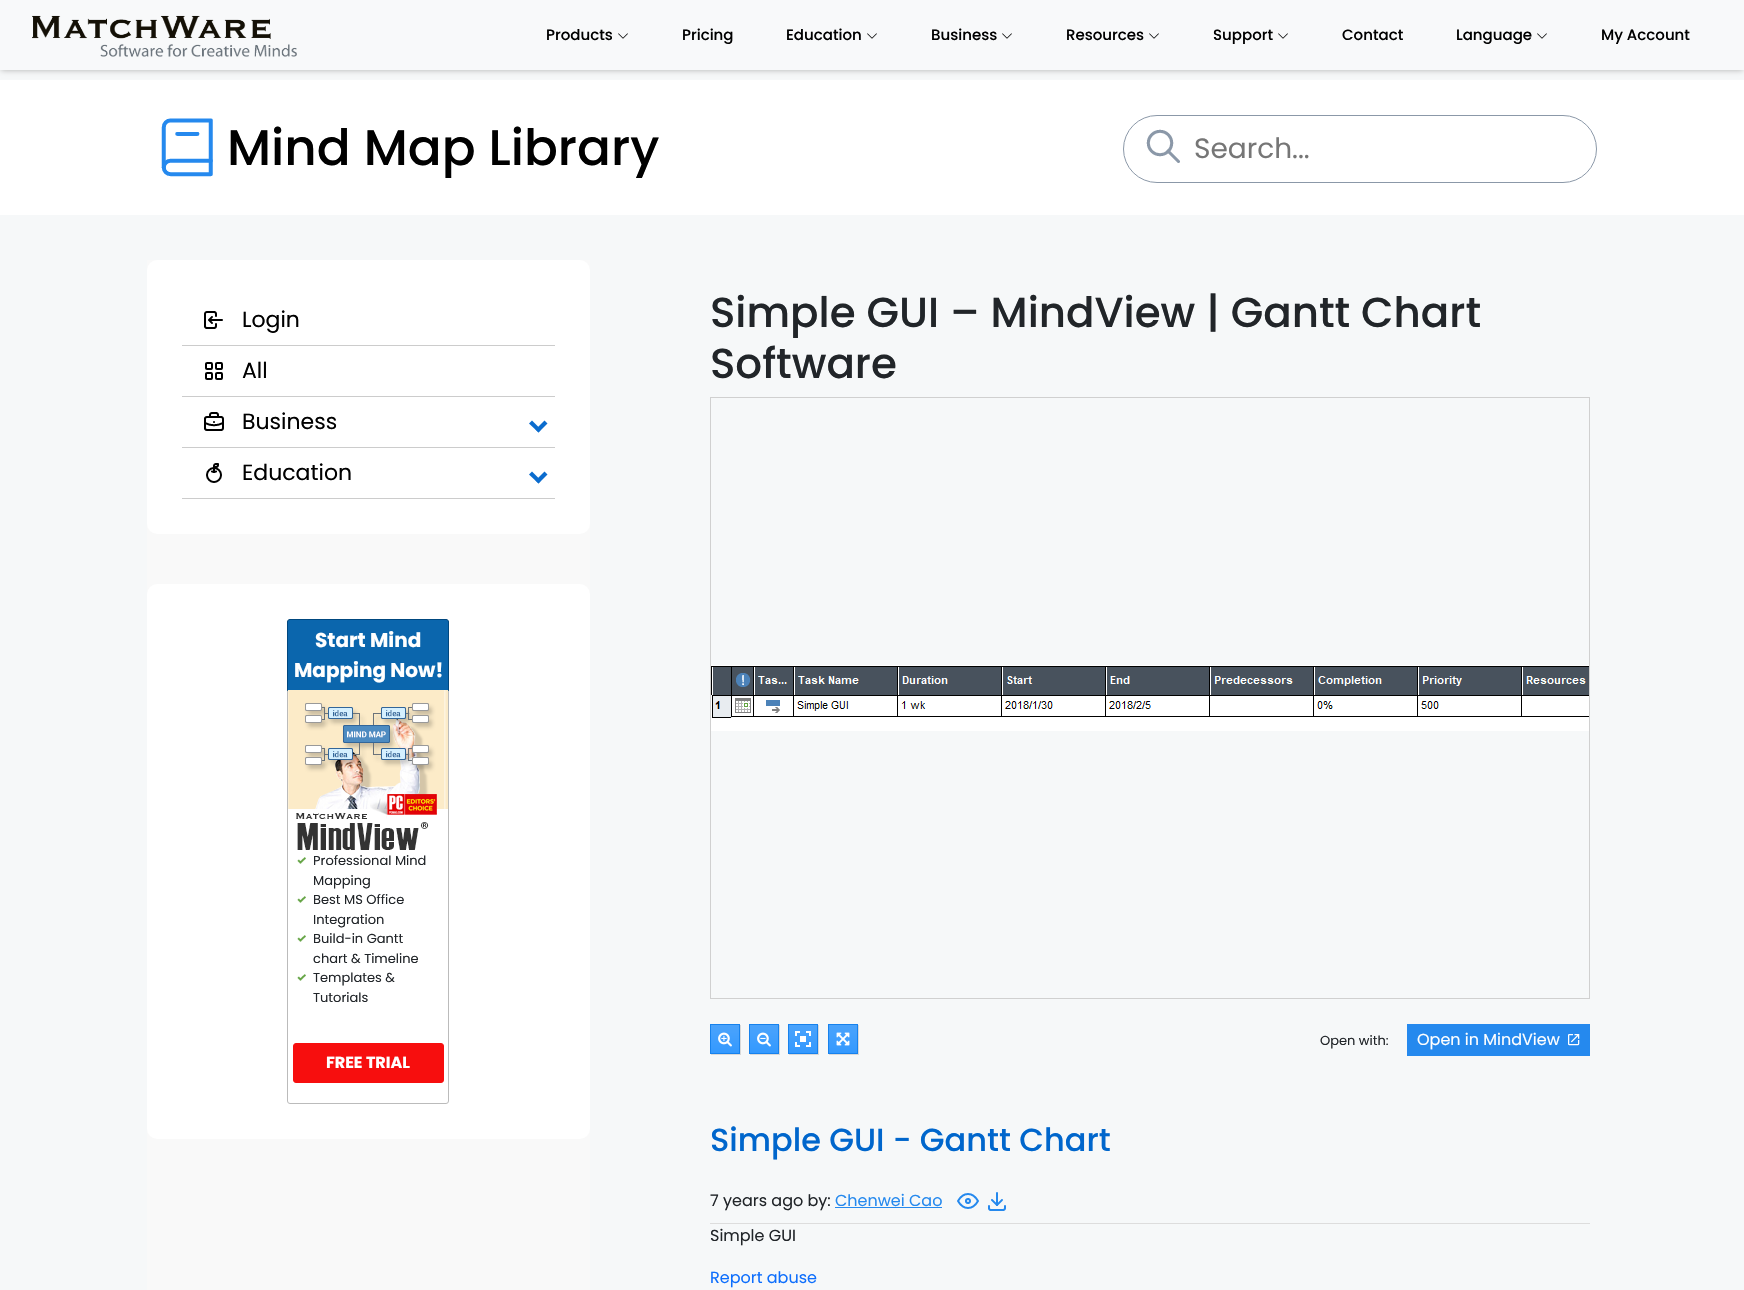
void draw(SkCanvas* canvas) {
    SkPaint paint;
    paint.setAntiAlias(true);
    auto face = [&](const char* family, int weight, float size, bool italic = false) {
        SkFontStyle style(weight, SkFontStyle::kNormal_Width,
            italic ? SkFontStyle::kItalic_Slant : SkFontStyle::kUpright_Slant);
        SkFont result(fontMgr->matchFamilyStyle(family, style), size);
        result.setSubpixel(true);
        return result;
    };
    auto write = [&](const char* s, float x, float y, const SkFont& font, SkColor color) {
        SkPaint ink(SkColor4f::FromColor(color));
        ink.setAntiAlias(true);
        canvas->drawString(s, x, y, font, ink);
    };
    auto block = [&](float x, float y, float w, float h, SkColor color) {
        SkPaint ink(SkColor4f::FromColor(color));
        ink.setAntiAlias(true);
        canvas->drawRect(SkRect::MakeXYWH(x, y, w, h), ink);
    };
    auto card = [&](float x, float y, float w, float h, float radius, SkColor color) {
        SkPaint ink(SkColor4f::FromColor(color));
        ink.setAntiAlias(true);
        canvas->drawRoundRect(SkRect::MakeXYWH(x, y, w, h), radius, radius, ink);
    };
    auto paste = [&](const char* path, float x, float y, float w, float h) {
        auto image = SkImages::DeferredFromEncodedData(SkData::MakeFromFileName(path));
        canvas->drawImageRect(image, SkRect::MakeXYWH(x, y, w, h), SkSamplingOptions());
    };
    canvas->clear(SkColorSetRGB(246, 248, 249));
    paint.setColor(SkColorSetRGB(175, 175, 175));
    paint.setMaskFilter(SkMaskFilter::MakeBlur(kNormal_SkBlurStyle, 3));
    canvas->drawRect(SkRect::MakeXYWH(1, 2, 1742, 68), paint);
    paint.setMaskFilter(nullptr);
    block(0, 0, 1744, 70, SkColorSetRGB(248, 249, 250));
    paste("pic1.png", 32, 15, 265, 42);
    auto kFont1 = face("Poppins", 500, 15);
    write("Products", 546, 40, kFont1, SK_ColorBLACK);
    paste("pic2.png", 618, 33, 10, 6);
    write("Pricing", 682, 40, kFont1, SK_ColorBLACK);
    write("Education", 786, 40, kFont1, SK_ColorBLACK);
    paste("pic2.png", 867, 33, 10, 6);
    write("Business", 931, 40, kFont1, SK_ColorBLACK);
    paste("pic2.png", 1002, 33, 10, 6);
    write("Resources", 1066, 40, kFont1, SK_ColorBLACK);
    paste("pic2.png", 1149, 33, 10, 6);
    write("Support", 1213, 40, kFont1, SK_ColorBLACK);
    paste("pic2.png", 1278, 33, 10, 6);
    write("Contact", 1342, 40, kFont1, SK_ColorBLACK);
    write("Language", 1456, 40, kFont1, SK_ColorBLACK);
    paste("pic2.png", 1537, 33, 10, 6);
    write("My Account", 1601, 40, kFont1, SK_ColorBLACK);
    block(0, 80, 1744, 135, SK_ColorWHITE);
    paste("pic3.png", 161, 118, 52, 59);
    auto kFont2 = face("Poppins", 500, 50);
    write("Mind Map Library", 227, 165, kFont2, SK_ColorBLACK);
    paint.setStyle(SkPaint::kStroke_Style);
    paint.setStrokeWidth(1);
    paint.setColor(SkColorSetRGB(139, 152, 168));
    canvas->drawRoundRect(SkRect::MakeXYWH(1123.5f, 115.5f, 473, 67), 33.5f, 33.5f, paint);
    paste("pic4.png", 1146, 129, 34, 34);
    auto kFont3 = face("Poppins", 400, 28);
    write("Search...", 1194, 158, kFont3, SkColorSetRGB(118, 118, 118));
    block(147, 260, 443, 1030, SkColorSetRGB(249, 249, 249));
    card(147, 260, 443, 274, 10, SK_ColorWHITE);
    block(182, 345, 373, 1, SkColorSetRGB(204, 204, 204));
    paste("pic5.png", 204, 311, 19, 18);
    auto kFont4 = face("Poppins", 400, 22);
    write("Login", 242, 327, kFont4, SK_ColorBLACK);
    block(182, 396, 373, 1, SkColorSetRGB(204, 204, 204));
    paste("pic6.png", 205, 362, 18, 18);
    write("All", 242, 378, kFont4, SK_ColorBLACK);
    block(182, 447, 373, 1, SkColorSetRGB(204, 204, 204));
    paste("pic7.png", 204, 412, 20, 19);
    write("Business", 242, 429, kFont4, SK_ColorBLACK);
    paint.setStyle(SkPaint::kFill_Style);
    paint.setColor(SkColorSetRGB(11, 108, 206));
    canvas->drawPath(SkPathBuilder().moveTo(544.5f, 420.5f).lineTo(547.5f, 423.5f).lineTo(538.5f, 432.5f).lineTo(535.5f, 429.5f).close().detach(), paint);
    canvas->drawPath(SkPathBuilder().moveTo(532, 420.5f).lineTo(541, 429.5f).lineTo(538.5f, 432.5f).lineTo(529, 423.5f).close().detach(), paint);
    block(182, 498, 373, 1, SkColorSetRGB(204, 204, 204));
    paste("pic8.png", 206, 463, 16, 20);
    write("Education", 242, 480, kFont4, SK_ColorBLACK);
    canvas->drawPath(SkPathBuilder().moveTo(544.5f, 471.5f).lineTo(547.5f, 474.5f).lineTo(538.5f, 483.5f).lineTo(535.5f, 480.5f).close().detach(), paint);
    canvas->drawPath(SkPathBuilder().moveTo(532, 471.5f).lineTo(541, 480.5f).lineTo(538.5f, 483.5f).lineTo(529, 474.5f).close().detach(), paint);
    card(147, 584, 443, 555, 10, SK_ColorWHITE);
    paint.setStyle(SkPaint::kStroke_Style);
    paint.setColor(SkColorSetRGB(187, 187, 187));
    canvas->drawRoundRect(SkRect::MakeXYWH(287.5f, 619.5f, 161, 484), 2.5f, 2.5f, paint);
    paint.setStyle(SkPaint::kFill_Style);
    paint.setColor(SkColorSetRGB(11, 102, 173));
    canvas->drawPath(SkPathBuilder().moveTo(290, 619.5f).lineTo(446, 619.5f).cubicTo(447.5f, 619.5f, 448.5f, 620.5f, 448.5f, 622).lineTo(448.5f, 690.5f).lineTo(287.5f, 690.5f).lineTo(287.5f, 622).cubicTo(287.5f, 620.5f, 288.5f, 619.5f, 290, 619.5f).close().detach(), paint);
    paint.setStyle(SkPaint::kStroke_Style);
    paint.setColor(SkColorSetRGB(0, 71, 127));
    canvas->drawPath(SkPathBuilder().moveTo(290, 619.5f).lineTo(446, 619.5f).cubicTo(447.5f, 619.5f, 448.5f, 620.5f, 448.5f, 622).lineTo(448.5f, 690.5f).lineTo(287.5f, 690.5f).lineTo(287.5f, 622).cubicTo(287.5f, 620.5f, 288.5f, 619.5f, 290, 619.5f).close().detach(), paint);
    auto kFont5 = face("Poppins", 700, 20);
    write("Start Mind", 315, 647, kFont5, SK_ColorWHITE);
    write("Mapping Now!", 294, 677, kFont5, SK_ColorWHITE);
    paste("pic9.png", 288, 690, 160, 160);
    paste("pic10.png", 297, 857, 9, 7);
    auto kFont6 = face("Poppins", 400, 13);
    write("Professional Mind", 313, 865, kFont6, SkColorSetRGB(33, 37, 41));
    write("Mapping", 313, 885, kFont6, SkColorSetRGB(33, 37, 41));
    paste("pic10.png", 297, 896, 9, 7);
    write("Best MS Office", 313, 904, kFont6, SkColorSetRGB(33, 37, 41));
    write("Integration", 313, 924, kFont6, SkColorSetRGB(33, 37, 41));
    paste("pic10.png", 297, 935, 9, 7);
    write("Build-in Gantt", 313, 943, kFont6, SkColorSetRGB(33, 37, 41));
    write("chart & Timeline", 313, 963, kFont6, SkColorSetRGB(33, 37, 41));
    paste("pic10.png", 297, 974, 9, 7);
    write("Templates &", 313, 982, kFont6, SkColorSetRGB(33, 37, 41));
    write("Tutorials", 313, 1002, kFont6, SkColorSetRGB(33, 37, 41));
    paint.setStyle(SkPaint::kFill_Style);
    paint.setColor(SkColorSetRGB(247, 14, 14));
    canvas->drawRoundRect(SkRect::MakeXYWH(293.5f, 1043.5f, 150, 39), 2.5f, 2.5f, paint);
    paint.setStyle(SkPaint::kStroke_Style);
    canvas->drawRoundRect(SkRect::MakeXYWH(293.5f, 1043.5f, 150, 39), 2.5f, 2.5f, paint);
    auto kFont7 = face("Poppins", 700, 16);
    write("FREE TRIAL", 326, 1068, kFont7, SK_ColorWHITE);
    auto kFont8 = face("Poppins", 500, 42);
    write("Simple GUI – MindView | Gantt Chart", 710, 327, kFont8, SkColorSetRGB(33, 37, 41));
    write("Software", 710, 378, kFont8, SkColorSetRGB(33, 37, 41));
    paint.setColor(SkColorSetRGB(208, 208, 208));
    canvas->drawRect(SkRect::MakeXYWH(710.5f, 397.5f, 879, 601), paint);
    paste("pic11.png", 711, 665, 878, 66);
    paint.setStyle(SkPaint::kFill_Style);
    paint.setColor(SkColorSetRGB(217, 217, 217));
    canvas->drawPath(SkPathBuilder().moveTo(711, 1054).lineTo(711, 1055).lineTo(741, 1055).lineTo(741, 1025).lineTo(740, 1025).lineTo(740, 1054).close().detach(), paint);
    paste("pic12.png", 710, 1024, 30, 30);
    canvas->drawPath(SkPathBuilder().moveTo(750, 1054).lineTo(750, 1055).lineTo(780, 1055).lineTo(780, 1025).lineTo(779, 1025).lineTo(779, 1054).close().detach(), paint);
    paste("pic13.png", 749, 1024, 30, 30);
    canvas->drawPath(SkPathBuilder().moveTo(789, 1054).lineTo(789, 1055).lineTo(819, 1055).lineTo(819, 1025).lineTo(818, 1025).lineTo(818, 1054).close().detach(), paint);
    paste("pic14.png", 788, 1024, 30, 30);
    canvas->drawPath(SkPathBuilder().moveTo(829, 1054).lineTo(829, 1055).lineTo(859, 1055).lineTo(859, 1025).lineTo(858, 1025).lineTo(858, 1054).close().detach(), paint);
    paste("pic15.png", 828, 1024, 30, 30);
    write("Open with:", 1320, 1045, kFont6, SkColorSetRGB(33, 37, 41));
    block(1407, 1024, 183, 32, SkColorSetRGB(37, 137, 238));
    paste("pic16.png", 1568, 1034, 12, 12);
    auto kFont9 = face("Poppins", 400, 16);
    write("Open in MindView", 1417, 1045, kFont9, SK_ColorWHITE);
    block(710, 1223, 880, 1, SkColorSetRGB(221, 221, 221));
    auto kFont10 = face("Poppins", 500, 32);
    write("Simple GUI - Gantt Chart", 710, 1151, kFont10, SkColorSetRGB(0, 102, 204));
    write("7 years ago by:", 710, 1206, kFont9, SkColorSetRGB(33, 37, 41));
    write("Chenwei Cao", 835, 1206, kFont9, SkColorSetRGB(37, 137, 238));
    block(835, 1207, 107, 1, SkColorSetRGB(37, 137, 238));
    paste("pic17.png", 957, 1193, 22, 16);
    paste("pic18.png", 988, 1192, 18, 19);
    write("Simple GUI", 710, 1241, kFont9, SkColorSetRGB(33, 37, 41));
    write("Report abuse", 710, 1283, kFont9, SkColorSetRGB(13, 110, 253));
}
